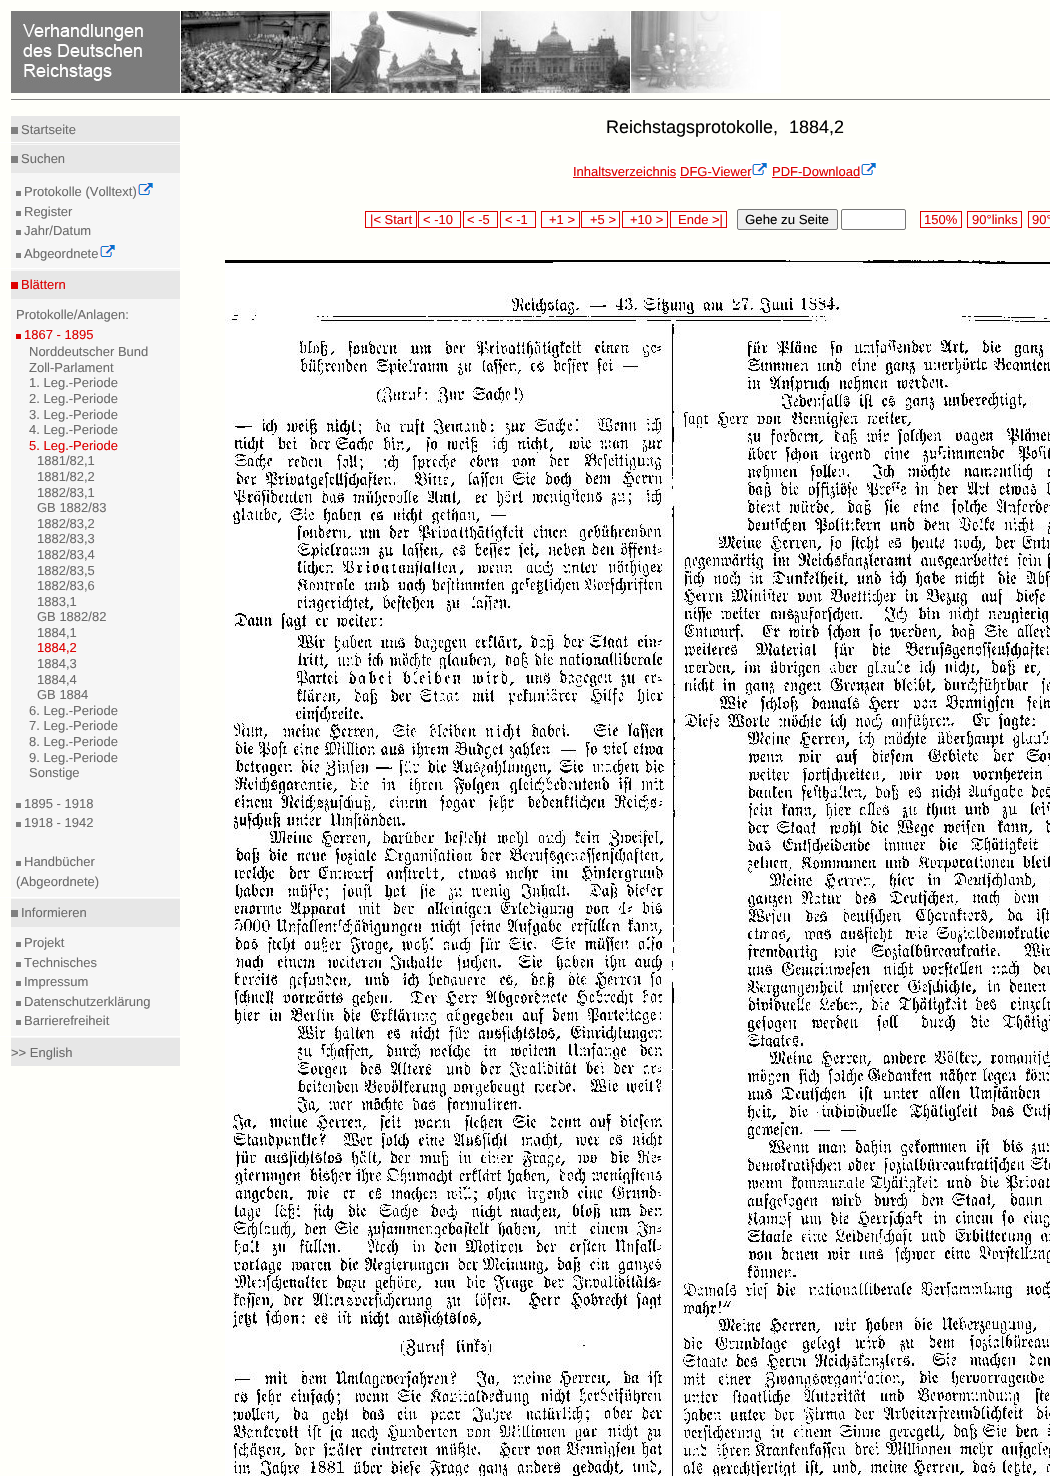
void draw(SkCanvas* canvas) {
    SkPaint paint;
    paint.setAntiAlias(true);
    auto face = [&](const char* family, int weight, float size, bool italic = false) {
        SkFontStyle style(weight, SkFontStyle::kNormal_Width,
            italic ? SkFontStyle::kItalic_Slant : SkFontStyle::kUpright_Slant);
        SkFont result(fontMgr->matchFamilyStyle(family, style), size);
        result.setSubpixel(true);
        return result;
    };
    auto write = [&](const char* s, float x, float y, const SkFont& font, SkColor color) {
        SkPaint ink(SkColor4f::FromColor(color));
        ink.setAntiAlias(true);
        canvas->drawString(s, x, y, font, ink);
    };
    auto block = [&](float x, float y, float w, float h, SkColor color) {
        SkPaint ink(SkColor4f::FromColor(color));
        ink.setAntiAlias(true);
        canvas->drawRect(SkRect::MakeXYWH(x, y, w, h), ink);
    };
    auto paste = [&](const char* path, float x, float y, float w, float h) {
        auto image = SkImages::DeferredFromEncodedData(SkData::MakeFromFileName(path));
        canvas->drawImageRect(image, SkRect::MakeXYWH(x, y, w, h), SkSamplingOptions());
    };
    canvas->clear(SkColorSetRGB(255, 255, 250));
    paste("pic1.png", 11, 11, 770, 82);
    block(11, 99, 1039, 1, SkColorSetRGB(128, 128, 128));
    block(11, 144, 169, 894, SkColorSetRGB(246, 246, 246));
    block(11, 116, 169, 28, SkColorSetRGB(231, 231, 231));
    block(11, 127, 7, 7, SkColorSetRGB(128, 128, 128));
    auto kFont1 = face("Liberation Sans", 400, 13);
    write("Startseite", 21, 134, kFont1, SkColorSetRGB(108, 108, 108));
    block(0, 142, 182, 1, SK_ColorWHITE);
    block(11, 145, 169, 28, SkColorSetRGB(231, 231, 231));
    block(11, 156, 7, 7, SkColorSetRGB(128, 128, 128));
    write("Suchen", 21, 163, kFont1, SkColorSetRGB(108, 108, 108));
    block(16, 191, 5, 5, SkColorSetRGB(128, 128, 128));
    write("Protokolle (Volltext)", 24, 196, kFont1, SkColorSetRGB(108, 108, 108));
    paste("pic2.png", 138, 183, 15, 12);
    block(16, 211, 5, 5, SkColorSetRGB(128, 128, 128));
    write("Register", 24, 216, kFont1, SkColorSetRGB(108, 108, 108));
    block(16, 230, 5, 5, SkColorSetRGB(128, 128, 128));
    write("Jahr/Datum", 24, 235, kFont1, SkColorSetRGB(108, 108, 108));
    block(16, 253, 5, 5, SkColorSetRGB(128, 128, 128));
    write("Abgeordnete", 24, 258, kFont1, SkColorSetRGB(108, 108, 108));
    paste("pic2.png", 100, 245, 15, 12);
    block(0, 268, 182, 1, SK_ColorWHITE);
    block(11, 271, 169, 28, SkColorSetRGB(231, 231, 231));
    block(11, 282, 7, 7, SkColorSetRGB(222, 0, 0));
    write("Blättern", 21, 289, kFont1, SkColorSetRGB(221, 0, 0));
    write("Protokolle/Anlagen:", 16, 319, kFont1, SkColorSetRGB(108, 108, 108));
    block(16, 334, 5, 5, SkColorSetRGB(222, 0, 0));
    write("1867 - 1895", 24, 339, kFont1, SkColorSetRGB(221, 0, 0));
    write("Norddeutscher Bund", 29, 356, kFont1, SkColorSetRGB(108, 108, 108));
    write("Zoll-Parlament", 29, 372, kFont1, SkColorSetRGB(108, 108, 108));
    write("1. Leg.-Periode", 29, 387, kFont1, SkColorSetRGB(108, 108, 108));
    write("2. Leg.-Periode", 29, 403, kFont1, SkColorSetRGB(108, 108, 108));
    write("3. Leg.-Periode", 29, 419, kFont1, SkColorSetRGB(108, 108, 108));
    write("4. Leg.-Periode", 29, 434, kFont1, SkColorSetRGB(108, 108, 108));
    write("5. Leg.-Periode", 29, 450, kFont1, SkColorSetRGB(221, 0, 0));
    write("1881/82,1", 37, 465, kFont1, SkColorSetRGB(108, 108, 108));
    write("1881/82,2", 37, 481, kFont1, SkColorSetRGB(108, 108, 108));
    write("1882/83,1", 37, 497, kFont1, SkColorSetRGB(108, 108, 108));
    write("GB 1882/83", 37, 512, kFont1, SkColorSetRGB(108, 108, 108));
    write("1882/83,2", 37, 528, kFont1, SkColorSetRGB(108, 108, 108));
    write("1882/83,3", 37, 543, kFont1, SkColorSetRGB(108, 108, 108));
    write("1882/83,4", 37, 559, kFont1, SkColorSetRGB(108, 108, 108));
    write("1882/83,5", 37, 575, kFont1, SkColorSetRGB(108, 108, 108));
    write("1882/83,6", 37, 590, kFont1, SkColorSetRGB(108, 108, 108));
    write("1883,1", 37, 606, kFont1, SkColorSetRGB(108, 108, 108));
    write("GB 1882/82", 37, 621, kFont1, SkColorSetRGB(108, 108, 108));
    write("1884,1", 37, 637, kFont1, SkColorSetRGB(108, 108, 108));
    write("1884,2", 37, 652, kFont1, SkColorSetRGB(221, 0, 0));
    write("1884,3", 37, 668, kFont1, SkColorSetRGB(108, 108, 108));
    write("1884,4", 37, 684, kFont1, SkColorSetRGB(108, 108, 108));
    write("GB 1884", 37, 699, kFont1, SkColorSetRGB(108, 108, 108));
    write("6. Leg.-Periode", 29, 715, kFont1, SkColorSetRGB(108, 108, 108));
    write("7. Leg.-Periode", 29, 730, kFont1, SkColorSetRGB(108, 108, 108));
    write("8. Leg.-Periode", 29, 746, kFont1, SkColorSetRGB(108, 108, 108));
    write("9. Leg.-Periode", 29, 762, kFont1, SkColorSetRGB(108, 108, 108));
    write("Sonstige", 29, 777, kFont1, SkColorSetRGB(108, 108, 108));
    block(16, 803, 5, 5, SkColorSetRGB(128, 128, 128));
    write("1895 - 1918", 24, 808, kFont1, SkColorSetRGB(108, 108, 108));
    block(16, 822, 5, 5, SkColorSetRGB(128, 128, 128));
    write("1918 - 1942", 24, 827, kFont1, SkColorSetRGB(108, 108, 108));
    block(16, 861, 5, 5, SkColorSetRGB(128, 128, 128));
    write("Handbücher", 24, 866, kFont1, SkColorSetRGB(108, 108, 108));
    write("(Abgeordnete)", 16, 886, kFont1, SkColorSetRGB(108, 108, 108));
    block(0, 897, 182, 1, SK_ColorWHITE);
    block(11, 899, 169, 28, SkColorSetRGB(231, 231, 231));
    block(11, 910, 7, 7, SkColorSetRGB(128, 128, 128));
    write("Informieren", 21, 917, kFont1, SkColorSetRGB(108, 108, 108));
    block(16, 942, 5, 5, SkColorSetRGB(128, 128, 128));
    write("Projekt", 24, 947, kFont1, SkColorSetRGB(108, 108, 108));
    block(16, 962, 5, 5, SkColorSetRGB(128, 128, 128));
    write("Technisches", 24, 967, kFont1, SkColorSetRGB(108, 108, 108));
    block(16, 981, 5, 5, SkColorSetRGB(128, 128, 128));
    write("Impressum", 24, 986, kFont1, SkColorSetRGB(108, 108, 108));
    block(16, 1001, 5, 5, SkColorSetRGB(128, 128, 128));
    write("Datenschutzerklärung", 24, 1006, kFont1, SkColorSetRGB(108, 108, 108));
    block(16, 1020, 5, 5, SkColorSetRGB(128, 128, 128));
    write("Barrierefreiheit", 24, 1025, kFont1, SkColorSetRGB(108, 108, 108));
    block(0, 1036, 182, 1, SK_ColorWHITE);
    block(11, 1038, 169, 28, SkColorSetRGB(231, 231, 231));
    write(">> English", 11, 1057, kFont1, SkColorSetRGB(108, 108, 108));
    auto kFont2 = face("Liberation Sans", 400, 18);
    write("Reichstagsprotokolle,", 606, 133, kFont2, SK_ColorBLACK);
    write("1884,2", 789, 133, kFont2, SK_ColorBLACK);
    block(573, 164, 103, 15, SK_ColorWHITE);
    write("Inhaltsverzeichnis", 573, 176, kFont1, SkColorSetRGB(221, 0, 0));
    block(573, 177, 103, 1, SkColorSetRGB(221, 0, 0));
    block(680, 164, 71, 15, SK_ColorWHITE);
    block(751, 159, 17, 17, SK_ColorWHITE);
    write("DFG-Viewer", 680, 176, kFont1, SkColorSetRGB(221, 0, 0));
    block(680, 177, 71, 1, SkColorSetRGB(221, 0, 0));
    paste("pic3.png", 752, 163, 15, 12);
    block(772, 164, 88, 15, SK_ColorWHITE);
    write("PDF-Download", 772, 176, kFont1, SkColorSetRGB(221, 0, 0));
    block(860, 159, 17, 17, SK_ColorWHITE);
    block(772, 177, 88, 1, SkColorSetRGB(221, 0, 0));
    paste("pic3.png", 861, 163, 15, 12);
    block(366, 212, 50, 15, SK_ColorWHITE);
    write("|< Start", 370, 224, kFont1, SkColorSetRGB(221, 0, 0));
    paint.setStyle(SkPaint::kStroke_Style);
    paint.setStrokeWidth(1);
    paint.setColor(SkColorSetRGB(221, 0, 0));
    canvas->drawRect(SkRect::MakeXYWH(365.5f, 211.5f, 51, 16), paint);
    block(419, 212, 41, 15, SK_ColorWHITE);
    write("< -10", 423, 224, kFont1, SkColorSetRGB(221, 0, 0));
    canvas->drawRect(SkRect::MakeXYWH(418.5f, 211.5f, 42, 16), paint);
    block(464, 212, 33, 15, SK_ColorWHITE);
    write("< -5", 467, 224, kFont1, SkColorSetRGB(221, 0, 0));
    canvas->drawRect(SkRect::MakeXYWH(463.5f, 211.5f, 34, 16), paint);
    block(501, 212, 34, 15, SK_ColorWHITE);
    write("< -1", 505, 224, kFont1, SkColorSetRGB(221, 0, 0));
    canvas->drawRect(SkRect::MakeXYWH(500.5f, 211.5f, 35, 16), paint);
    block(542, 212, 37, 15, SK_ColorWHITE);
    write("+1 >", 549, 224, kFont1, SkColorSetRGB(221, 0, 0));
    canvas->drawRect(SkRect::MakeXYWH(541.5f, 211.5f, 38, 16), paint);
    block(582, 212, 37, 15, SK_ColorWHITE);
    write("+5 >", 590, 224, kFont1, SkColorSetRGB(221, 0, 0));
    canvas->drawRect(SkRect::MakeXYWH(581.5f, 211.5f, 38, 16), paint);
    block(623, 212, 44, 15, SK_ColorWHITE);
    write("+10 >", 630, 224, kFont1, SkColorSetRGB(221, 0, 0));
    canvas->drawRect(SkRect::MakeXYWH(622.5f, 211.5f, 45, 16), paint);
    block(671, 212, 55, 15, SK_ColorWHITE);
    write("Ende >|", 678, 224, kFont1, SkColorSetRGB(221, 0, 0));
    canvas->drawRect(SkRect::MakeXYWH(670.5f, 211.5f, 56, 16), paint);
    paint.setStyle(SkPaint::kFill_Style);
    paint.setColor(SkColorSetRGB(239, 239, 239));
    canvas->drawRoundRect(SkRect::MakeXYWH(737.5f, 209.5f, 100, 20), 1.5f, 1.5f, paint);
    paint.setStyle(SkPaint::kStroke_Style);
    paint.setColor(SkColorSetRGB(118, 118, 118));
    canvas->drawRoundRect(SkRect::MakeXYWH(737.5f, 209.5f, 100, 20), 1.5f, 1.5f, paint);
    auto kFont3 = face("Liberation Sans", 400, 13.25f);
    write("Gehe zu Seite", 745, 224, kFont3, SK_ColorBLACK);
    paint.setStyle(SkPaint::kFill_Style);
    paint.setColor(SK_ColorWHITE);
    canvas->drawRoundRect(SkRect::MakeXYWH(841.5f, 209.5f, 64, 20), 1.5f, 1.5f, paint);
    paint.setStyle(SkPaint::kStroke_Style);
    paint.setColor(SkColorSetRGB(118, 118, 118));
    canvas->drawRoundRect(SkRect::MakeXYWH(841.5f, 209.5f, 64, 20), 1.5f, 1.5f, paint);
    block(921, 212, 40, 15, SK_ColorWHITE);
    write("150%", 924, 224, kFont1, SkColorSetRGB(221, 0, 0));
    paint.setColor(SkColorSetRGB(221, 0, 0));
    canvas->drawRect(SkRect::MakeXYWH(920.5f, 211.5f, 41, 16), paint);
    block(968, 212, 53, 15, SK_ColorWHITE);
    write("90°links", 972, 224, kFont1, SkColorSetRGB(221, 0, 0));
    canvas->drawRect(SkRect::MakeXYWH(967.5f, 211.5f, 54, 16), paint);
    block(1029, 212, 21, 15, SK_ColorWHITE);
    write("90°", 1032, 224, kFont1, SkColorSetRGB(221, 0, 0));
    canvas->drawRect(SkRect::MakeXYWH(1028.5f, 211.5f, 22, 16), paint);
    paste("pic4.png", 225, 260, 825, 1216);
}
